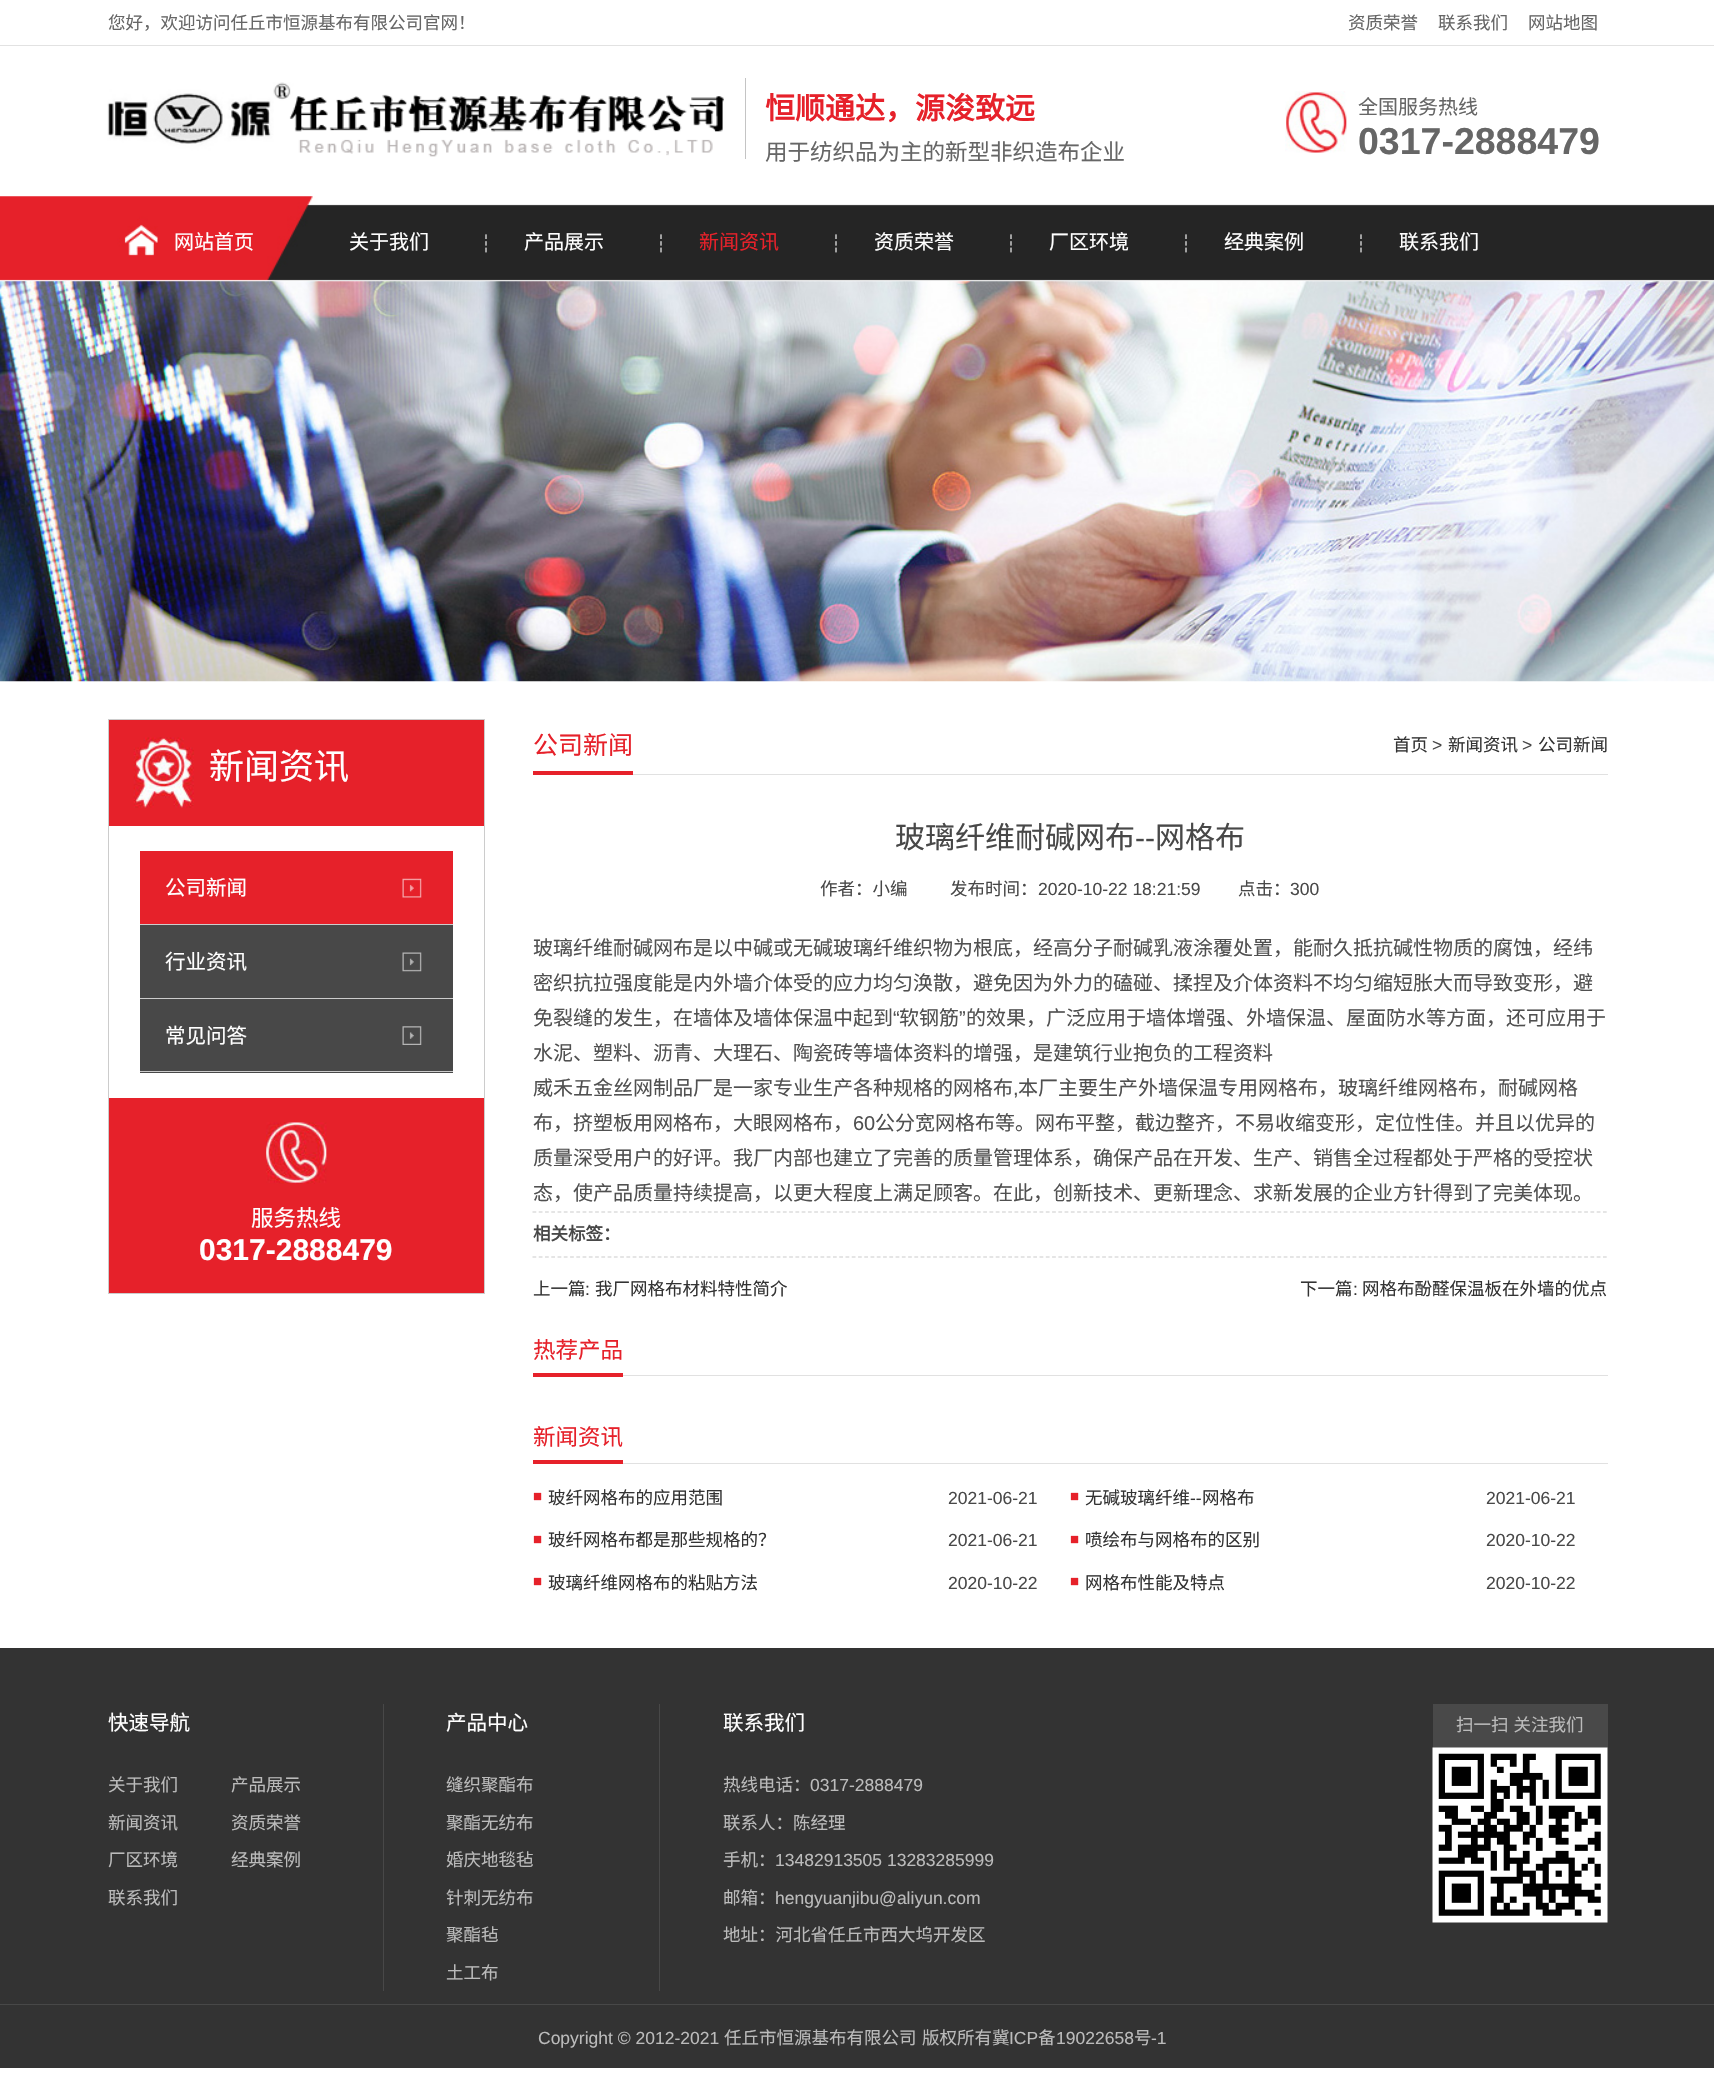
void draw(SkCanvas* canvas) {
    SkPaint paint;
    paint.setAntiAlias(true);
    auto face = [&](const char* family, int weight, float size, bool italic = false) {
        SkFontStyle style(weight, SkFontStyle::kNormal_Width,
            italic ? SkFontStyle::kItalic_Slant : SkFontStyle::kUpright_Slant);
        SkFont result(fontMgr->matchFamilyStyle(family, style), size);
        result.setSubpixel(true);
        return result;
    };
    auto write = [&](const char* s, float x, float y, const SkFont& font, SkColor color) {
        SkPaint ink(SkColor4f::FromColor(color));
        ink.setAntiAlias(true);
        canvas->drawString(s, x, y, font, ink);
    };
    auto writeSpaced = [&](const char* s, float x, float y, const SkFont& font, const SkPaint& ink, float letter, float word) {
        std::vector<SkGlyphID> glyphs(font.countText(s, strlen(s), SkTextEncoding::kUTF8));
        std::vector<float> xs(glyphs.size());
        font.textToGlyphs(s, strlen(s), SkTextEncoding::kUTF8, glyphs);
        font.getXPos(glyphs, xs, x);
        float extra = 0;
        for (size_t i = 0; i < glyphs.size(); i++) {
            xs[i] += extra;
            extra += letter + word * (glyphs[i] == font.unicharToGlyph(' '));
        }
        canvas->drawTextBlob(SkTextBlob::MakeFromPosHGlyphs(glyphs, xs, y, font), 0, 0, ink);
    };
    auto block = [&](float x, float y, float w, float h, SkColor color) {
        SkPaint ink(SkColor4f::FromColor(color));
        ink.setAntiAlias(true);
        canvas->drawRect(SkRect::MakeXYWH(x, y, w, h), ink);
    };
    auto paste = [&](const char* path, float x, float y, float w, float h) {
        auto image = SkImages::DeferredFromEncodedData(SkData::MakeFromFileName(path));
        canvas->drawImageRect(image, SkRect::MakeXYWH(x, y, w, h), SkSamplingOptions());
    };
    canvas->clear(SK_ColorWHITE);
    block(0, 45, 1714, 1, SkColorSetRGB(226, 226, 226));
    auto kFont1 = face("Noto Sans CJK SC", 400, 17.5f);
    write("您好，欢迎访问任丘市恒源基布有限公司官网！", 108, 29, kFont1, SkColorSetRGB(102, 102, 102));
    write("资质荣誉", 1348, 29, kFont1, SkColorSetRGB(102, 102, 102));
    write("联系我们", 1438, 29, kFont1, SkColorSetRGB(102, 102, 102));
    write("网站地图", 1528, 29, kFont1, SkColorSetRGB(102, 102, 102));
    paste("pic1.png", 107, 82, 617, 75);
    block(745, 78, 1, 81, SkColorSetRGB(196, 196, 196));
    auto kFont2 = face("Noto Sans CJK SC", 700, 30);
    write("恒顺通达，源浚致远", 765, 119, kFont2, SkColorSetRGB(230, 33, 42));
    auto kFont3 = face("Noto Sans CJK SC", 400, 22.5f);
    write("用于纺织品为主的新型非织造布企业", 765, 160, kFont3, SkColorSetRGB(102, 102, 102));
    paste("pic2.png", 1285, 91, 62, 62);
    auto kFont4 = face("Noto Sans CJK SC", 400, 20);
    write("全国服务热线", 1358, 114, kFont4, SkColorSetRGB(102, 102, 102));
    auto kFont5 = face("Liberation Sans", 700, 37.5f);
    write("0317-2888479", 1358, 154, kFont5, SkColorSetRGB(102, 102, 102));
    paste("pic3.png", 0, 196, 1714, 85);
    write("网站首页", 174, 249, kFont4, SK_ColorWHITE);
    write("关于我们", 349, 249, kFont4, SK_ColorWHITE);
    write("┆", 476, 251, kFont4, SK_ColorWHITE);
    write("产品展示", 524, 249, kFont4, SK_ColorWHITE);
    write("┆", 651, 251, kFont4, SK_ColorWHITE);
    write("新闻资讯", 699, 249, kFont4, SkColorSetRGB(230, 33, 42));
    write("┆", 826, 251, kFont4, SK_ColorWHITE);
    write("资质荣誉", 874, 249, kFont4, SK_ColorWHITE);
    write("┆", 1001, 251, kFont4, SK_ColorWHITE);
    write("厂区环境", 1049, 249, kFont4, SK_ColorWHITE);
    write("┆", 1176, 251, kFont4, SK_ColorWHITE);
    write("经典案例", 1224, 249, kFont4, SK_ColorWHITE);
    write("┆", 1351, 251, kFont4, SK_ColorWHITE);
    write("联系我们", 1399, 249, kFont4, SK_ColorWHITE);
    paste("pic4.png", 0, 281, 1714, 401);
    paint.setStyle(SkPaint::kStroke_Style);
    paint.setStrokeWidth(1);
    paint.setColor(SkColorSetRGB(204, 204, 204));
    canvas->drawRect(SkRect::MakeXYWH(108.5f, 719.5f, 376, 574), paint);
    block(109, 720, 375, 106, SkColorSetRGB(230, 33, 42));
    paste("pic5.png", 133, 737, 61, 71);
    auto kFont6 = face("Noto Sans CJK SC", 400, 35);
    write("新闻资讯", 209, 779, kFont6, SK_ColorWHITE);
    block(140, 851, 313, 73, SkColorSetRGB(230, 33, 42));
    paste("pic6.png", 402, 878, 20, 20);
    block(140, 924, 313, 1, SkColorSetRGB(204, 204, 204));
    auto kFont7 = face("Noto Sans CJK SC", 400, 20.5f);
    write("公司新闻", 165, 895, kFont7, SK_ColorWHITE);
    block(140, 925, 313, 73, SkColorSetRGB(72, 72, 72));
    paste("pic7.png", 402, 952, 20, 20);
    block(140, 998, 313, 1, SkColorSetRGB(204, 204, 204));
    write("行业资讯", 165, 969, kFont7, SK_ColorWHITE);
    block(140, 999, 313, 74, SkColorSetRGB(72, 72, 72));
    paste("pic8.png", 402, 1026, 20, 19);
    block(140, 1071, 313, 1, SkColorSetRGB(204, 204, 204));
    write("常见问答", 165, 1043, kFont7, SK_ColorWHITE);
    block(109, 1098, 375, 195, SkColorSetRGB(230, 33, 42));
    paste("pic9.png", 266, 1122, 62, 62);
    write("服务热线", 251, 1226, kFont3, SK_ColorWHITE);
    auto kFont8 = face("Liberation Sans", 700, 30);
    write("0317-2888479", 199, 1260, kFont8, SK_ColorWHITE);
    block(633, 774, 975, 1, SkColorSetRGB(225, 225, 225));
    auto kFont9 = face("Noto Sans CJK SC", 400, 25);
    write("公司新闻", 533, 754, kFont9, SkColorSetRGB(230, 33, 42));
    block(533, 771, 100, 4, SkColorSetRGB(230, 33, 42));
    write("首页", 1393, 751, kFont1, SkColorSetRGB(51, 51, 51));
    auto kFont10 = face("Liberation Sans", 400, 17.5f);
    write(">", 1432, 751, kFont10, SkColorSetRGB(72, 72, 72));
    write("新闻资讯", 1448, 751, kFont1, SkColorSetRGB(51, 51, 51));
    write(">", 1522, 751, kFont10, SkColorSetRGB(72, 72, 72));
    write("公司新闻", 1538, 751, kFont1, SkColorSetRGB(51, 51, 51));
    auto kFont11 = face("Noto Sans CJK SC", 400, 30);
    write("玻璃纤维耐碱网布", 895, 848, kFont11, SkColorSetRGB(72, 72, 72));
    auto kFont12 = face("Liberation Sans", 400, 30);
    write("--", 1135, 848, kFont12, SkColorSetRGB(72, 72, 72));
    write("网格布", 1155, 848, kFont11, SkColorSetRGB(72, 72, 72));
    write("作者：小编", 820, 895, kFont1, SkColorSetRGB(72, 72, 72));
    write("发布时间：", 950, 895, kFont1, SkColorSetRGB(72, 72, 72));
    write("2020-10-22 18:21:59", 1038, 895, kFont10, SkColorSetRGB(72, 72, 72));
    write("点击：", 1238, 895, kFont1, SkColorSetRGB(72, 72, 72));
    write("300", 1290, 895, kFont10, SkColorSetRGB(72, 72, 72));
    write("玻璃纤维耐碱网布是以中碱或无碱玻璃纤维织物为根底，经高分子耐碱乳液涂覆处置，能耐久抵抗碱性物质的腐蚀，经纬", 533, 955, kFont4, SkColorSetRGB(80, 80, 80));
    write("密织抗拉强度能是内外墙介体受的应力均匀涣散，避免因为外力的磕碰、揉捏及介体资料不均匀缩短胀大而导致变形，避", 533, 990, kFont4, SkColorSetRGB(80, 80, 80));
    write("免裂缝的发生，在墙体及墙体保温中起到", 533, 1025, kFont4, SkColorSetRGB(80, 80, 80));
    auto kFont13 = face("Liberation Sans", 400, 20);
    write("“", 893, 1025, kFont13, SkColorSetRGB(80, 80, 80));
    write("软钢筋", 899, 1025, kFont4, SkColorSetRGB(80, 80, 80));
    write("”", 959, 1025, kFont13, SkColorSetRGB(80, 80, 80));
    write("的效果，广泛应用于墙体增强、外墙保温、屋面防水等方面，还可应用于", 966, 1025, kFont4, SkColorSetRGB(80, 80, 80));
    write("水泥、塑料、沥青、大理石、陶瓷砖等墙体资料的增强，是建筑行业抱负的工程资料", 533, 1060, kFont4, SkColorSetRGB(80, 80, 80));
    write("威禾五金丝网制品厂是一家专业生产各种规格的网格布", 533, 1095, kFont4, SkColorSetRGB(80, 80, 80));
    write(",", 1013, 1095, kFont13, SkColorSetRGB(80, 80, 80));
    write("本厂主要生产外墙保温专用网格布，玻璃纤维网格布，耐碱网格", 1018, 1095, kFont4, SkColorSetRGB(80, 80, 80));
    write("布，挤塑板用网格布，大眼网格布，", 533, 1130, kFont4, SkColorSetRGB(80, 80, 80));
    write("60", 853, 1130, kFont13, SkColorSetRGB(80, 80, 80));
    write("公分宽网格布等。网布平整，截边整齐，不易收缩变形，定位性佳。并且以优异的", 875, 1130, kFont4, SkColorSetRGB(80, 80, 80));
    write("质量深受用户的好评。我厂内部也建立了完善的质量管理体系，确保产品在开发、生产、销售全过程都处于严格的受控状", 533, 1165, kFont4, SkColorSetRGB(80, 80, 80));
    write("态，使产品质量持续提高，以更大程度上满足顾客。在此，创新技术、更新理念、求新发展的企业方针得到了完美体现。", 533, 1200, kFont4, SkColorSetRGB(80, 80, 80));
    paint.setStrokeWidth(1.2f);
    paint.setPathEffect(SkDashPathEffect::Make({{3.75f, 2.51f}}, 0));
    canvas->drawPath(SkPathBuilder().moveTo(532.5f, 1212).lineTo(1607.5f, 1212).detach(), paint);
    paint.setPathEffect(nullptr);
    paint.setPathEffect(SkDashPathEffect::Make({{3.75f, 2.51f}}, 0));
    canvas->drawPath(SkPathBuilder().moveTo(532.5f, 1257).lineTo(1607.5f, 1257).detach(), paint);
    paint.setPathEffect(nullptr);
    auto kFont14 = face("Noto Sans CJK SC", 700, 17.5f);
    write("相关标签：", 533, 1240, kFont14, SkColorSetRGB(72, 72, 72));
    write("上一篇", 533, 1295, kFont1, SkColorSetRGB(51, 51, 51));
    write(":", 585, 1295, kFont10, SkColorSetRGB(51, 51, 51));
    write("我厂网格布材料特性简介", 595, 1295, kFont1, SkColorSetRGB(51, 51, 51));
    write("下一篇", 1300, 1295, kFont1, SkColorSetRGB(51, 51, 51));
    write(":", 1353, 1295, kFont10, SkColorSetRGB(51, 51, 51));
    write("网格布酚醛保温板在外墙的优点", 1362, 1295, kFont1, SkColorSetRGB(51, 51, 51));
    block(623, 1375, 985, 1, SkColorSetRGB(225, 225, 225));
    write("热荐产品", 533, 1358, kFont3, SkColorSetRGB(230, 33, 42));
    block(533, 1373, 90, 4, SkColorSetRGB(230, 33, 42));
    block(623, 1463, 985, 1, SkColorSetRGB(225, 225, 225));
    write("新闻资讯", 533, 1445, kFont3, SkColorSetRGB(230, 33, 42));
    block(533, 1460, 90, 4, SkColorSetRGB(230, 33, 42));
    auto kFont15 = face("Liberation Sans", 400, 15);
    write("■", 533, 1501, kFont15, SkColorSetRGB(230, 33, 42));
    write("玻纤网格布的应用范围", 548, 1504, kFont1, SkColorSetRGB(51, 51, 51));
    write("2021-06-21", 948, 1504, kFont10, SkColorSetRGB(72, 72, 72));
    write("■", 1070, 1501, kFont15, SkColorSetRGB(230, 33, 42));
    write("无碱玻璃纤维", 1085, 1504, kFont1, SkColorSetRGB(51, 51, 51));
    write("--", 1190, 1504, kFont10, SkColorSetRGB(51, 51, 51));
    write("网格布", 1202, 1504, kFont1, SkColorSetRGB(51, 51, 51));
    write("2021-06-21", 1486, 1504, kFont10, SkColorSetRGB(72, 72, 72));
    write("■", 533, 1544, kFont15, SkColorSetRGB(230, 33, 42));
    write("玻纤网格布都是那些规格的？", 548, 1546, kFont1, SkColorSetRGB(51, 51, 51));
    write("2021-06-21", 948, 1546, kFont10, SkColorSetRGB(72, 72, 72));
    write("■", 1070, 1544, kFont15, SkColorSetRGB(230, 33, 42));
    write("喷绘布与网格布的区别", 1085, 1546, kFont1, SkColorSetRGB(51, 51, 51));
    write("2020-10-22", 1486, 1546, kFont10, SkColorSetRGB(72, 72, 72));
    write("■", 533, 1586, kFont15, SkColorSetRGB(230, 33, 42));
    write("玻璃纤维网格布的粘贴方法", 548, 1589, kFont1, SkColorSetRGB(51, 51, 51));
    write("2020-10-22", 948, 1589, kFont10, SkColorSetRGB(72, 72, 72));
    write("■", 1070, 1586, kFont15, SkColorSetRGB(230, 33, 42));
    write("网格布性能及特点", 1085, 1589, kFont1, SkColorSetRGB(51, 51, 51));
    write("2020-10-22", 1486, 1589, kFont10, SkColorSetRGB(72, 72, 72));
    block(0, 1648, 1714, 356, SkColorSetRGB(51, 51, 51));
    write("快速导航", 108, 1730, kFont7, SK_ColorWHITE);
    write("关于我们", 108, 1791, kFont1, SkColorSetRGB(187, 187, 187));
    write("产品展示", 231, 1791, kFont1, SkColorSetRGB(187, 187, 187));
    write("新闻资讯", 108, 1829, kFont1, SkColorSetRGB(187, 187, 187));
    write("资质荣誉", 231, 1829, kFont1, SkColorSetRGB(187, 187, 187));
    write("厂区环境", 108, 1866, kFont1, SkColorSetRGB(187, 187, 187));
    write("经典案例", 231, 1866, kFont1, SkColorSetRGB(187, 187, 187));
    write("联系我们", 108, 1904, kFont1, SkColorSetRGB(187, 187, 187));
    block(659, 1704, 1, 287, SkColorSetRGB(72, 72, 72));
    block(383, 1704, 1, 287, SkColorSetRGB(72, 72, 72));
    write("产品中心", 446, 1730, kFont7, SK_ColorWHITE);
    write("缝织聚酯布", 446, 1791, kFont1, SkColorSetRGB(187, 187, 187));
    write("聚酯无纺布", 446, 1829, kFont1, SkColorSetRGB(187, 187, 187));
    write("婚庆地毯毡", 446, 1866, kFont1, SkColorSetRGB(187, 187, 187));
    write("针刺无纺布", 446, 1904, kFont1, SkColorSetRGB(187, 187, 187));
    write("聚酯毡", 446, 1941, kFont1, SkColorSetRGB(187, 187, 187));
    write("土工布", 446, 1979, kFont1, SkColorSetRGB(187, 187, 187));
    write("联系我们", 723, 1730, kFont7, SK_ColorWHITE);
    write("热线电话：", 723, 1791, kFont1, SkColorSetRGB(187, 187, 187));
    write("0317-2888479", 810, 1791, kFont10, SkColorSetRGB(187, 187, 187));
    write("联系人：陈经理", 723, 1829, kFont1, SkColorSetRGB(187, 187, 187));
    write("手机：", 723, 1866, kFont1, SkColorSetRGB(187, 187, 187));
    write("13482913505 13283285999", 775, 1866, kFont10, SkColorSetRGB(187, 187, 187));
    write("邮箱：", 723, 1904, kFont1, SkColorSetRGB(187, 187, 187));
    write("hengyuanjibu@aliyun.com", 775, 1904, kFont10, SkColorSetRGB(187, 187, 187));
    write("地址：河北省任丘市西大坞开发区", 723, 1941, kFont1, SkColorSetRGB(187, 187, 187));
    block(1433, 1704, 175, 44, SkColorSetRGB(73, 73, 73));
    paint.setStyle(SkPaint::kFill_Style);
    paint.setColor(SkColorSetRGB(187, 187, 187));
    writeSpaced("扫一扫 关注我们", 1456, 1731, kFont1, paint, 0, 1);
    paste("pic10.png", 1432, 1747, 176, 176);
    block(0, 2005, 1714, 63, SkColorSetRGB(51, 51, 51));
    block(0, 2004, 1714, 1, SkColorSetRGB(72, 72, 72));
    write("Copyright © 2012-2021", 538, 2044, kFont10, SkColorSetRGB(187, 187, 187));
    write("任丘市恒源基布有限公司", 724, 2044, kFont1, SkColorSetRGB(187, 187, 187));
    write("版权所有冀", 922, 2044, kFont1, SkColorSetRGB(187, 187, 187));
    write("ICP", 1009, 2044, kFont10, SkColorSetRGB(187, 187, 187));
    write("备", 1038, 2044, kFont1, SkColorSetRGB(187, 187, 187));
    write("19022658", 1056, 2044, kFont10, SkColorSetRGB(187, 187, 187));
    write("号", 1134, 2044, kFont1, SkColorSetRGB(187, 187, 187));
    write("-1", 1151, 2044, kFont10, SkColorSetRGB(187, 187, 187));
}
